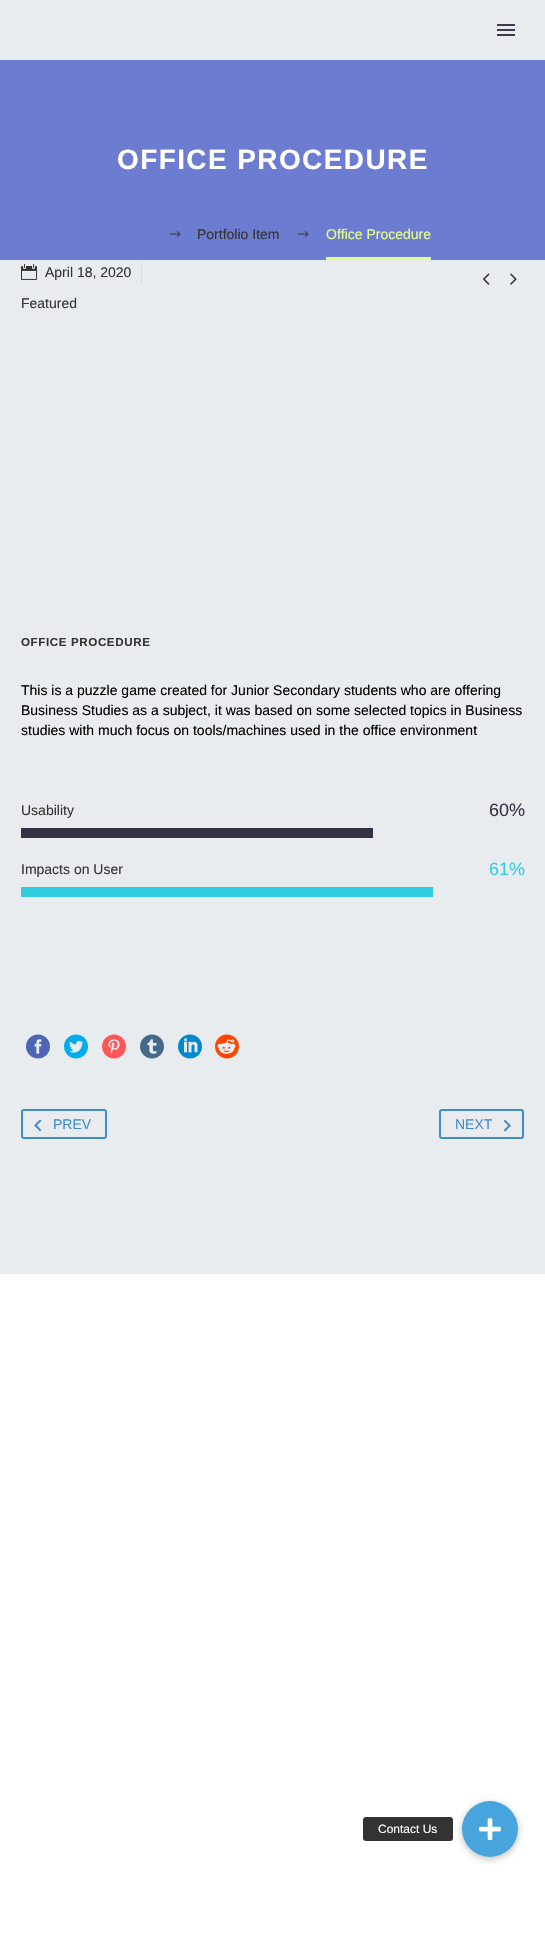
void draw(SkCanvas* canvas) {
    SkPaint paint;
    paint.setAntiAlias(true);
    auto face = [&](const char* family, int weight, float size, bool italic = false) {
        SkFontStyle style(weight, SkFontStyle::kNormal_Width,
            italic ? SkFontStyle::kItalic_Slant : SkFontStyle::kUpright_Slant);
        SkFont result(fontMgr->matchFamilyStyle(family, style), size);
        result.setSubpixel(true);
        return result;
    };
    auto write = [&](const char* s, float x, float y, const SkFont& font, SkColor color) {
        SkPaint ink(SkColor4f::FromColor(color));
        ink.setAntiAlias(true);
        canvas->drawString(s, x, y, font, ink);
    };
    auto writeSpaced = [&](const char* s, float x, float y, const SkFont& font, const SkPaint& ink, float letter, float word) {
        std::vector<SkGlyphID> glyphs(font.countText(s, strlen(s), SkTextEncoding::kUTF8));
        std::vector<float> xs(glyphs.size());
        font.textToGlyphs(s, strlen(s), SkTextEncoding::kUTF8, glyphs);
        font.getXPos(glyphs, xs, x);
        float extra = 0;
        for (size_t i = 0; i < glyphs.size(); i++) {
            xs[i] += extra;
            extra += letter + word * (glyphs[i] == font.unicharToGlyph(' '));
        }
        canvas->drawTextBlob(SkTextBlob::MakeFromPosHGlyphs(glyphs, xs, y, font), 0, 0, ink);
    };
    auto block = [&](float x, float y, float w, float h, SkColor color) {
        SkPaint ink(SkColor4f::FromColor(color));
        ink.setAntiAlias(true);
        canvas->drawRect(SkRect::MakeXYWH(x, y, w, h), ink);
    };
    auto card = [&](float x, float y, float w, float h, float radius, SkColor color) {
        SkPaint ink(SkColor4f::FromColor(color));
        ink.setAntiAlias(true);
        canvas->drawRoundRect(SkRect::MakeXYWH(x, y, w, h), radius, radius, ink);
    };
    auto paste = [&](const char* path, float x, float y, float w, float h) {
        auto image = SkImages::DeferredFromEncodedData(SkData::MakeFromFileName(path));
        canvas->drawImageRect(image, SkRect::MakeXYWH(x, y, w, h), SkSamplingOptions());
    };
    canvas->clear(SK_ColorWHITE);
    block(0, 0, 545, 1274, SkColorSetRGB(232, 236, 239));
    block(497, 24, 18, 2, SkColorSetRGB(60, 57, 80));
    block(497, 29, 18, 2, SkColorSetRGB(60, 57, 80));
    block(497, 34, 18, 2, SkColorSetRGB(60, 57, 80));
    block(0, 60, 545, 200, SkColorSetRGB(108, 124, 208));
    auto kFont1 = face("Liberation Sans", 700, 28);
    paint.setColor(SK_ColorWHITE);
    writeSpaced("OFFICE PROCEDURE", 117, 169, kFont1, paint, 1.4f, 0);
    paste("pic1.png", 169, 231, 12, 7);
    auto kFont2 = face("Liberation Sans", 400, 14);
    write("Portfolio Item", 197, 239, kFont2, SkColorSetRGB(51, 51, 51));
    paste("pic1.png", 297, 231, 12, 7);
    block(326, 257, 105, 3, SkColorSetRGB(231, 255, 137));
    write("Office Procedure", 326, 239, kFont2, SkColorSetRGB(231, 255, 137));
    paste("pic2.png", 21, 264, 17, 16);
    write("April 18, 2020", 45, 277, kFont2, SkColorSetRGB(51, 51, 51));
    block(141, 263, 1, 20, SkColorSetRGB(212, 222, 225));
    write("Featured", 21, 308, kFont2, SkColorSetRGB(51, 51, 51));
    paste("pic3.png", 483, 273, 7, 12);
    paste("pic4.png", 510, 273, 7, 12);
    auto kFont3 = face("Liberation Sans", 700, 11.6f);
    paint.setColor(SkColorSetRGB(51, 51, 51));
    writeSpaced("OFFICE PROCEDURE", 21, 646, kFont3, paint, 0.6f, 0);
    write("This is a puzzle game created for Junior Secondary students who are offering", 21, 695, kFont2, SK_ColorBLACK);
    write("Business Studies as a subject, it was based on some selected topics in Business", 21, 715, kFont2, SK_ColorBLACK);
    write("studies with much focus on tools/machines used in the office environment", 21, 735, kFont2, SK_ColorBLACK);
    write("Usability", 21, 815, kFont2, SkColorSetRGB(51, 51, 51));
    auto kFont4 = face("Liberation Sans", 400, 18);
    write("60%", 489, 816, kFont4, SkColorSetRGB(51, 49, 68));
    block(21, 828, 352, 10, SkColorSetRGB(51, 49, 68));
    write("Impacts on User", 21, 874, kFont2, SkColorSetRGB(51, 51, 51));
    write("61%", 489, 875, kFont4, SkColorSetRGB(48, 205, 225));
    block(21, 887, 412, 10, SkColorSetRGB(48, 205, 225));
    paste("pic5.png", 26, 1034, 24, 25);
    paste("pic6.png", 64, 1034, 24, 25);
    paste("pic7.png", 102, 1034, 24, 25);
    paste("pic8.png", 140, 1034, 24, 25);
    paste("pic9.png", 178, 1034, 24, 25);
    paste("pic10.png", 215, 1034, 24, 25);
    paint.setStyle(SkPaint::kStroke_Style);
    paint.setStrokeWidth(2);
    paint.setColor(SkColorSetRGB(66, 139, 202));
    canvas->drawRoundRect(SkRect::MakeXYWH(22, 1110, 84, 28), 2, 2, paint);
    paste("pic11.png", 34, 1119, 8, 13);
    write("PREV", 53, 1129, kFont2, SkColorSetRGB(66, 139, 202));
    canvas->drawRoundRect(SkRect::MakeXYWH(440, 1110, 83, 28), 2, 2, paint);
    write("NEXT", 455, 1129, kFont2, SkColorSetRGB(66, 139, 202));
    paste("pic12.png", 503, 1119, 8, 13);
    paint.setStyle(SkPaint::kFill_Style);
    paint.setColor(SkColorSetARGB(51, 0, 0, 0));
    paint.setMaskFilter(SkMaskFilter::MakeBlur(kNormal_SkBlurStyle, 3));
    canvas->drawRoundRect(SkRect::MakeXYWH(461, 1802, 58, 58), 29, 29, paint);
    paint.setMaskFilter(nullptr);
    paint.setColor(SkColorSetRGB(72, 164, 220));
    canvas->drawCircle(490, 1829, 28, paint);
    card(363, 1817, 90, 24, 3, SkColorSetRGB(51, 51, 51));
    auto kFont5 = face("Liberation Sans", 400, 12);
    write("Contact Us", 378, 1833, kFont5, SK_ColorWHITE);
    paste("pic13.png", 479, 1818, 22, 23);
}
